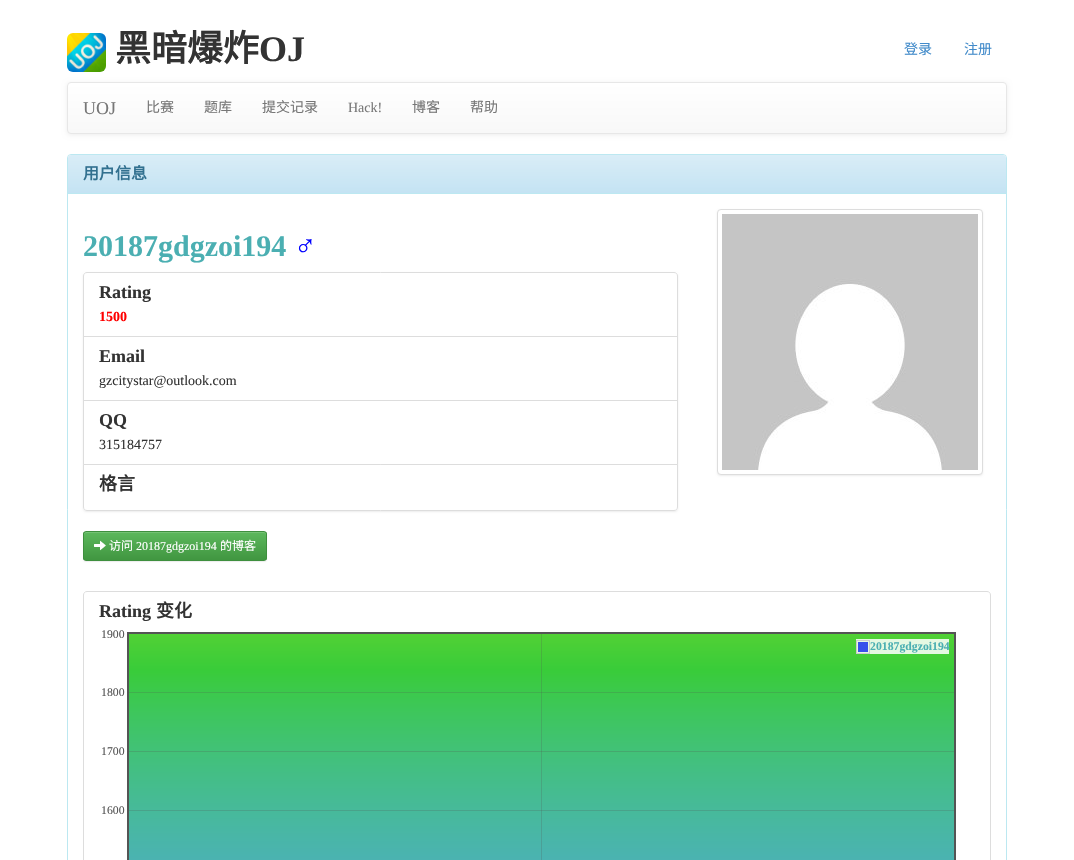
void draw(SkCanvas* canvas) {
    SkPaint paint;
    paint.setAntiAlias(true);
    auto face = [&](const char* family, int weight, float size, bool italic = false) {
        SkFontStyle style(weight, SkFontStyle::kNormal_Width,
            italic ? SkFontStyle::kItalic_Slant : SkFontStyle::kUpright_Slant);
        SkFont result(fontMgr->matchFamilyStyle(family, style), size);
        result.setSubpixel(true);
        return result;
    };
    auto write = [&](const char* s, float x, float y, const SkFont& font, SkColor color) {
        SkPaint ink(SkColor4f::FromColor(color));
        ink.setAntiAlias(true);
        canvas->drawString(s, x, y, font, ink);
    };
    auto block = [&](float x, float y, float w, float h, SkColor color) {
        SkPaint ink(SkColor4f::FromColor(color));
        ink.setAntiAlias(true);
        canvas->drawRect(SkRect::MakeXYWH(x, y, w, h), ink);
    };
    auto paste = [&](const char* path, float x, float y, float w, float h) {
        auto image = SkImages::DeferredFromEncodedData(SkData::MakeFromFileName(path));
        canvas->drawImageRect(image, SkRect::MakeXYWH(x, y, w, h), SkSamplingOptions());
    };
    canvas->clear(SK_ColorWHITE);
    paste("pic1.png", 67, 33, 39, 39);
    auto kFont1 = face("Noto Sans CJK SC", 700, 36);
    write("黑暗爆炸", 115, 61, kFont1, SkColorSetRGB(51, 51, 51));
    auto kFont2 = face("Liberation Serif", 700, 36);
    write("OJ", 259, 61, kFont2, SkColorSetRGB(51, 51, 51));
    auto kFont3 = face("Noto Sans CJK SC", 400, 14);
    write("登录", 904, 54, kFont3, SkColorSetRGB(66, 139, 202));
    write("注册", 964, 54, kFont3, SkColorSetRGB(66, 139, 202));
    paint.setColor(SkColorSetARGB(18, 0, 0, 0));
    paint.setMaskFilter(SkMaskFilter::MakeBlur(kNormal_SkBlurStyle, 2.5f));
    canvas->drawRoundRect(SkRect::MakeXYWH(67, 83, 940, 52), 4, 4, paint);
    paint.setMaskFilter(nullptr);
    canvas->save();
    canvas->clipPath(SkPathBuilder().moveTo(71, 82).lineTo(1003, 82).cubicTo(1005, 82, 1007, 84, 1007, 86).lineTo(1007, 130).cubicTo(1007, 132, 1005, 134, 1003, 134).lineTo(71, 134).cubicTo(69, 134, 67, 132, 67, 130).lineTo(67, 86).cubicTo(67, 84, 69, 82, 71, 82).close().detach(), true);
    {
        const SkColor colors[] = {SK_ColorWHITE, SkColorSetRGB(248, 248, 248)};
        const float stops[] = {0, 1};
        const SkPoint ends[] = {{537, 83}, {537, 133}};
        paint.setShader(SkGradientShader::MakeLinear(ends, colors, stops, 2, SkTileMode::kClamp));
        paint.setAlpha(255);
    }
    canvas->drawRect(SkRect::MakeXYWH(67, 83, 940, 50), paint);
    canvas->restore();
    paint.setStyle(SkPaint::kStroke_Style);
    paint.setStrokeWidth(1);
    paint.setShader(nullptr);
    paint.setColor(SkColorSetRGB(231, 231, 231));
    canvas->drawRoundRect(SkRect::MakeXYWH(67.5f, 82.5f, 939, 51), 3.5f, 3.5f, paint);
    auto kFont4 = face("Liberation Serif", 400, 18);
    write("UOJ", 83, 114, kFont4, SkColorSetRGB(119, 119, 119));
    write("比赛", 146, 112, kFont3, SkColorSetRGB(119, 119, 119));
    write("题库", 204, 112, kFont3, SkColorSetRGB(119, 119, 119));
    write("提交记录", 262, 112, kFont3, SkColorSetRGB(119, 119, 119));
    auto kFont5 = face("Liberation Serif", 400, 14);
    write("Hack!", 348, 112, kFont5, SkColorSetRGB(119, 119, 119));
    write("博客", 412, 112, kFont3, SkColorSetRGB(119, 119, 119));
    write("帮助", 470, 112, kFont3, SkColorSetRGB(119, 119, 119));
    paint.setColor(SkColorSetRGB(188, 232, 241));
    canvas->drawRoundRect(SkRect::MakeXYWH(67.5f, 154.5f, 939, 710), 3.5f, 3.5f, paint);
    paint.setStyle(SkPaint::kFill_Style);
    {
        const SkColor colors[] = {SkColorSetRGB(217, 237, 247), SkColorSetRGB(196, 227, 243)};
        const float stops[] = {0, 1};
        const SkPoint ends[] = {{537, 155}, {537, 193}};
        paint.setShader(SkGradientShader::MakeLinear(ends, colors, stops, 2, SkTileMode::kClamp));
        paint.setAlpha(255);
    }
    canvas->drawPath(SkPathBuilder().moveTo(71, 155).lineTo(1003, 155).cubicTo(1004.5f, 155, 1006, 156.5f, 1006, 158).lineTo(1006, 193).lineTo(68, 193).lineTo(68, 158).cubicTo(68, 156.5f, 69.5f, 155, 71, 155).close().detach(), paint);
    block(68, 193, 938, 1, SkColorSetRGB(188, 232, 241));
    auto kFont6 = face("Noto Sans CJK SC", 700, 16);
    write("用户信息", 83, 179, kFont6, SkColorSetRGB(49, 112, 143));
    auto kFont7 = face("Liberation Serif", 700, 30);
    write("20187gdgzoi194", 83, 256, kFont7, SkColorSetRGB(75, 175, 178));
    write("♂", 294, 256, kFont7, SkColorSetRGB(0, 0, 255));
    canvas->save();
    canvas->clipPath(SkPathBuilder(SkPathFillType::kEvenOdd).moveTo(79, 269).lineTo(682, 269).lineTo(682, 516).lineTo(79, 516).close().moveTo(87, 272).lineTo(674, 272).cubicTo(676, 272, 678, 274, 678, 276).lineTo(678, 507).cubicTo(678, 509, 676, 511, 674, 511).lineTo(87, 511).cubicTo(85, 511, 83, 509, 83, 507).lineTo(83, 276).cubicTo(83, 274, 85, 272, 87, 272).close().detach(), true);
    paint.setShader(nullptr);
    paint.setColor(SkColorSetARGB(18, 0, 0, 0));
    paint.setMaskFilter(SkMaskFilter::MakeBlur(kNormal_SkBlurStyle, 1));
    canvas->drawRoundRect(SkRect::MakeXYWH(83, 273, 595, 239), 4, 4, paint);
    paint.setMaskFilter(nullptr);
    canvas->restore();
    paint.setStyle(SkPaint::kStroke_Style);
    paint.setColor(SkColorSetRGB(221, 221, 221));
    canvas->drawPath(SkPathBuilder().moveTo(87, 272.5f).lineTo(674, 272.5f).cubicTo(676, 272.5f, 677.5f, 274, 677.5f, 276).lineTo(677.5f, 336.5f).lineTo(83.5f, 336.5f).lineTo(83.5f, 276).cubicTo(83.5f, 274, 85, 272.5f, 87, 272.5f).close().detach(), paint);
    auto kFont8 = face("Liberation Serif", 700, 18);
    write("Rating", 99, 298, kFont8, SkColorSetRGB(51, 51, 51));
    auto kFont9 = face("Liberation Serif", 700, 14);
    write("1500", 99, 321, kFont9, SkColorSetRGB(255, 0, 0));
    canvas->drawRect(SkRect::MakeXYWH(83.5f, 336.5f, 594, 64), paint);
    write("Email", 99, 362, kFont8, SkColorSetRGB(51, 51, 51));
    write("gzcitystar@outlook.com", 99, 385, kFont5, SkColorSetRGB(51, 51, 51));
    canvas->drawRect(SkRect::MakeXYWH(83.5f, 400.5f, 594, 64), paint);
    write("QQ", 99, 426, kFont8, SkColorSetRGB(51, 51, 51));
    write("315184757", 99, 449, kFont5, SkColorSetRGB(51, 51, 51));
    paint.setStyle(SkPaint::kFill_Style);
    paint.setColor(SK_ColorWHITE);
    canvas->drawPath(SkPathBuilder().moveTo(83.5f, 464.5f).lineTo(677.5f, 464.5f).lineTo(677.5f, 507).cubicTo(677.5f, 509, 676, 510.5f, 674, 510.5f).lineTo(87, 510.5f).cubicTo(85, 510.5f, 83.5f, 509, 83.5f, 507).close().detach(), paint);
    paint.setStyle(SkPaint::kStroke_Style);
    paint.setColor(SkColorSetRGB(221, 221, 221));
    canvas->drawPath(SkPathBuilder().moveTo(83.5f, 464.5f).lineTo(677.5f, 464.5f).lineTo(677.5f, 507).cubicTo(677.5f, 509, 676, 510.5f, 674, 510.5f).lineTo(87, 510.5f).cubicTo(85, 510.5f, 83.5f, 509, 83.5f, 507).close().detach(), paint);
    auto kFont10 = face("Noto Sans CJK SC", 700, 18);
    write("格言", 99, 490, kFont10, SkColorSetRGB(51, 51, 51));
    paint.setStyle(SkPaint::kFill_Style);
    paint.setColor(SkColorSetARGB(18, 0, 0, 0));
    paint.setMaskFilter(SkMaskFilter::MakeBlur(kNormal_SkBlurStyle, 1));
    canvas->drawRoundRect(SkRect::MakeXYWH(717, 210, 266, 266), 4, 4, paint);
    paint.setMaskFilter(nullptr);
    paint.setColor(SK_ColorWHITE);
    canvas->drawRoundRect(SkRect::MakeXYWH(717.5f, 209.5f, 265, 265), 3.5f, 3.5f, paint);
    paint.setStyle(SkPaint::kStroke_Style);
    paint.setColor(SkColorSetRGB(221, 221, 221));
    canvas->drawRoundRect(SkRect::MakeXYWH(717.5f, 209.5f, 265, 265), 3.5f, 3.5f, paint);
    paste("pic2.png", 722, 214, 256, 256);
    paint.setStyle(SkPaint::kFill_Style);
    paint.setColor(SkColorSetARGB(18, 0, 0, 0));
    paint.setMaskFilter(SkMaskFilter::MakeBlur(kNormal_SkBlurStyle, 0.5f));
    canvas->drawRoundRect(SkRect::MakeXYWH(83, 532, 184, 30), 3, 3, paint);
    paint.setMaskFilter(nullptr);
    canvas->save();
    canvas->clipPath(SkPathBuilder().moveTo(86, 531).lineTo(264, 531).cubicTo(265.5f, 531, 267, 532.5f, 267, 534).lineTo(267, 558).cubicTo(267, 559.5f, 265.5f, 561, 264, 561).lineTo(86, 561).cubicTo(84.5f, 561, 83, 559.5f, 83, 558).lineTo(83, 534).cubicTo(83, 532.5f, 84.5f, 531, 86, 531).close().detach(), true);
    {
        const SkColor colors[] = {SkColorSetRGB(92, 184, 92), SkColorSetRGB(65, 150, 65)};
        const float stops[] = {0, 1};
        const SkPoint ends[] = {{175, 532}, {175, 560}};
        paint.setShader(SkGradientShader::MakeLinear(ends, colors, stops, 2, SkTileMode::kClamp));
        paint.setAlpha(255);
    }
    canvas->drawRect(SkRect::MakeXYWH(83, 532, 184, 28), paint);
    canvas->restore();
    paint.setShader(nullptr);
    paint.setColor(SkColorSetRGB(116, 194, 116));
    canvas->drawPath(SkPathBuilder().moveTo(86, 533).lineTo(264, 533).cubicTo(265, 533, 266, 534, 266, 535).lineTo(266, 534).cubicTo(266, 533, 265, 532, 264, 532).lineTo(86, 532).cubicTo(85, 532, 84, 533, 84, 534).lineTo(84, 535).cubicTo(84, 534, 85, 533, 86, 533).close().detach(), paint);
    paint.setStyle(SkPaint::kStroke_Style);
    paint.setColor(SkColorSetRGB(62, 143, 62));
    canvas->drawRoundRect(SkRect::MakeXYWH(83.5f, 531.5f, 183, 29), 2.5f, 2.5f, paint);
    paste("pic3.png", 94, 540, 12, 11);
    auto kFont11 = face("Noto Sans CJK SC", 400, 12);
    write("访问", 109, 550, kFont11, SK_ColorWHITE);
    auto kFont12 = face("Liberation Serif", 400, 12);
    write("20187gdgzoi194", 136, 550, kFont12, SK_ColorWHITE);
    write("的博客", 220, 550, kFont11, SK_ColorWHITE);
    paint.setColor(SkColorSetRGB(221, 221, 221));
    canvas->drawPath(SkPathBuilder().moveTo(87, 591.5f).lineTo(987, 591.5f).cubicTo(989, 591.5f, 990.5f, 593, 990.5f, 595).lineTo(990.5f, 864.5f).lineTo(83.5f, 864.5f).lineTo(83.5f, 595).cubicTo(83.5f, 593, 85, 591.5f, 87, 591.5f).close().detach(), paint);
    write("Rating", 99, 617, kFont8, SkColorSetRGB(51, 51, 51));
    write("变化", 156, 617, kFont10, SkColorSetRGB(51, 51, 51));
    auto kFont13 = face("Liberation Serif", 400, 11.75f);
    write("1900", 101, 638, kFont13, SkColorSetRGB(84, 84, 84));
    write("1800", 101, 696, kFont13, SkColorSetRGB(84, 84, 84));
    write("1700", 101, 755, kFont13, SkColorSetRGB(84, 84, 84));
    write("1600", 101, 814, kFont13, SkColorSetRGB(84, 84, 84));
    paste("pic4.png", 127, 632, 829, 228);
    block(856, 639, 93, 15, SkColorSetARGB(217, 255, 255, 255));
    paint.setColor(SkColorSetRGB(204, 204, 204));
    canvas->drawRect(SkRect::MakeXYWH(856.5f, 640.5f, 13, 13), paint);
    block(858, 642, 10, 10, SkColorSetRGB(56, 80, 235));
    auto kFont14 = face("Liberation Serif", 700, 11.75f);
    write("20187gdgzoi194", 870, 650, kFont14, SkColorSetRGB(75, 175, 178));
}
